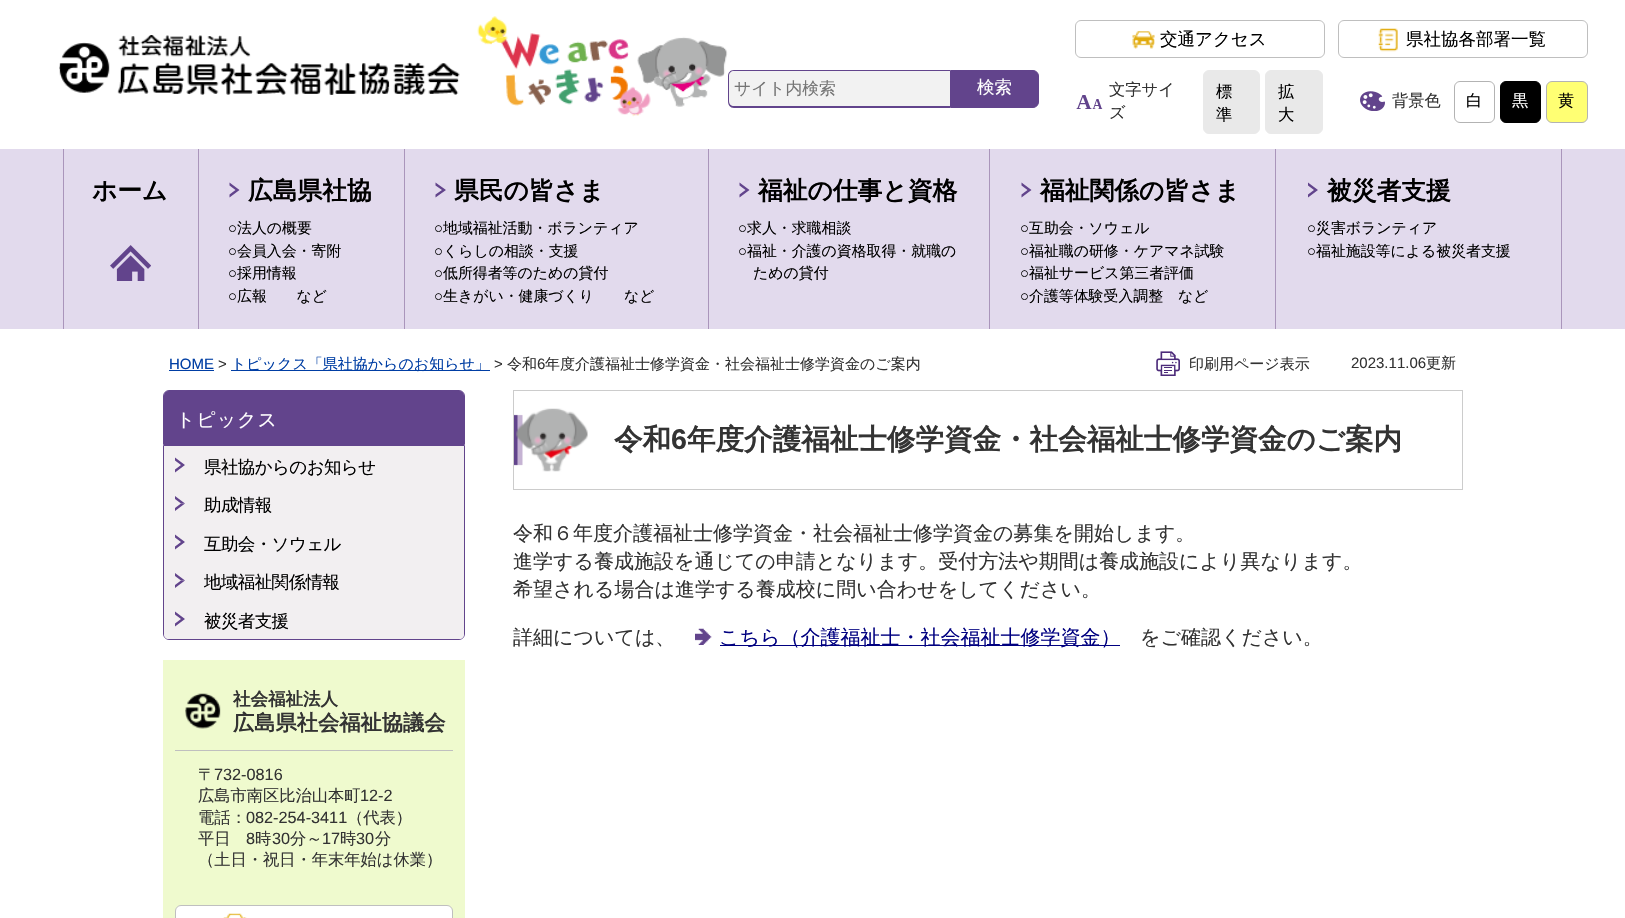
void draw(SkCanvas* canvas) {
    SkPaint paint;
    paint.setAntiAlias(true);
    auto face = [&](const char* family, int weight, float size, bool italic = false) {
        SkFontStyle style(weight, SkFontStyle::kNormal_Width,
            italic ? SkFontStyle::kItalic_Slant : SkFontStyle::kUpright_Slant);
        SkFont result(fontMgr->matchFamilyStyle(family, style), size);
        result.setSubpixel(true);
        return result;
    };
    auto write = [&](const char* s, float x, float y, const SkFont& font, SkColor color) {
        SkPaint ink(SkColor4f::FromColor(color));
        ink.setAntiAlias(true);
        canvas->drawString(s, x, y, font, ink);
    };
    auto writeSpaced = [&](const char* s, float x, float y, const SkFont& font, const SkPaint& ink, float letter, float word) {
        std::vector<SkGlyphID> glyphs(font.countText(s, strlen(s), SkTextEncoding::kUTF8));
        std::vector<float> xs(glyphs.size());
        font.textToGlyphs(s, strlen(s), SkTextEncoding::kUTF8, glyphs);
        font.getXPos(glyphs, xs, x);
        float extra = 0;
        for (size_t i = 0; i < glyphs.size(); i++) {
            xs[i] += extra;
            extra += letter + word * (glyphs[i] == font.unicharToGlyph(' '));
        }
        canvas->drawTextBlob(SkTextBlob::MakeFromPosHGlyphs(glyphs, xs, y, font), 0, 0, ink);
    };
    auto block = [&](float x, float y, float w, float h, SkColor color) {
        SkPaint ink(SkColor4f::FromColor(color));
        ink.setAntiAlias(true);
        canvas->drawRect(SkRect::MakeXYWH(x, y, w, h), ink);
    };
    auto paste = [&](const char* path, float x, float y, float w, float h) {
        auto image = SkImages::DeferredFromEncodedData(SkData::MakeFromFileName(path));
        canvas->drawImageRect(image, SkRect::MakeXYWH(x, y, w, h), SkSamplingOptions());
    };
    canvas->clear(SK_ColorWHITE);
    paste("pic1.png", 477, 16, 251, 101);
    paste("pic2.png", 59, 35, 401, 60);
    paint.setStyle(SkPaint::kStroke_Style);
    paint.setStrokeWidth(1);
    paint.setColor(SkColorSetRGB(191, 191, 191));
    canvas->drawRoundRect(SkRect::MakeXYWH(1075.5f, 20.5f, 249, 37), 5.5f, 5.5f, paint);
    paste("pic3.png", 1132, 31, 23, 18);
    auto kFont1 = face("WenQuanYi Zen Hei", 500, 17.5f);
    write("交通アクセス", 1160, 45, kFont1, SK_ColorBLACK);
    canvas->drawRoundRect(SkRect::MakeXYWH(1338.5f, 20.5f, 249, 37), 5.5f, 5.5f, paint);
    paste("pic4.png", 1378, 28, 20, 24);
    write("県社協各部署一覧", 1406, 45, kFont1, SK_ColorBLACK);
    paint.setStyle(SkPaint::kFill_Style);
    paint.setColor(SkColorSetRGB(242, 242, 242));
    canvas->drawPath(SkPathBuilder().moveTo(734, 70).lineTo(950, 70).lineTo(950, 108).lineTo(734, 108).cubicTo(730.5f, 108, 728, 105.5f, 728, 102).lineTo(728, 76).cubicTo(728, 72.5f, 730.5f, 70, 734, 70).close().detach(), paint);
    paint.setColor(SkColorSetRGB(98, 68, 140));
    canvas->drawPath(SkPathBuilder(SkPathFillType::kEvenOdd).moveTo(734, 70).lineTo(950, 70).lineTo(950, 108).lineTo(734, 108).cubicTo(730, 108, 728, 105, 728, 101).lineTo(728, 76).cubicTo(728, 73, 730, 70, 734, 70).close().moveTo(734, 71).lineTo(950, 71).lineTo(950, 106).lineTo(734, 106).cubicTo(731, 106, 729, 104, 729, 101).lineTo(729, 76).cubicTo(729, 73, 731, 71, 734, 71).close().detach(), paint);
    auto kFont2 = face("WenQuanYi Zen Hei", 500, 16.75f);
    write("サイト内検索", 734, 94, kFont2, SkColorSetRGB(117, 117, 117));
    canvas->drawPath(SkPathBuilder().moveTo(950.5f, 70.5f).lineTo(1033, 70.5f).cubicTo(1036, 70.5f, 1038.5f, 73, 1038.5f, 76).lineTo(1038.5f, 102).cubicTo(1038.5f, 105, 1036, 107.5f, 1033, 107.5f).lineTo(950.5f, 107.5f).close().detach(), paint);
    paint.setStyle(SkPaint::kStroke_Style);
    canvas->drawPath(SkPathBuilder().moveTo(950.5f, 70.5f).lineTo(1033, 70.5f).cubicTo(1036, 70.5f, 1038.5f, 73, 1038.5f, 76).lineTo(1038.5f, 102).cubicTo(1038.5f, 105, 1036, 107.5f, 1033, 107.5f).lineTo(950.5f, 107.5f).close().detach(), paint);
    write("検索", 977, 93, kFont1, SK_ColorWHITE);
    paste("pic5.png", 1076, 95, 27, 14);
    auto kFont3 = face("WenQuanYi Zen Hei", 500, 16.25f);
    write("文字サイ", 1109, 95, kFont3, SkColorSetRGB(51, 51, 51));
    write("ズ", 1109, 118, kFont3, SkColorSetRGB(51, 51, 51));
    paint.setStyle(SkPaint::kFill_Style);
    paint.setColor(SkColorSetRGB(233, 233, 233));
    canvas->drawRoundRect(SkRect::MakeXYWH(1203.5f, 70.5f, 56, 63), 5.5f, 5.5f, paint);
    paint.setStyle(SkPaint::kStroke_Style);
    canvas->drawRoundRect(SkRect::MakeXYWH(1203.5f, 70.5f, 56, 63), 5.5f, 5.5f, paint);
    write("標", 1216, 97, kFont3, SK_ColorBLACK);
    write("準", 1216, 120, kFont3, SK_ColorBLACK);
    paint.setStyle(SkPaint::kFill_Style);
    canvas->drawRoundRect(SkRect::MakeXYWH(1265.5f, 70.5f, 57, 63), 5.5f, 5.5f, paint);
    paint.setStyle(SkPaint::kStroke_Style);
    canvas->drawRoundRect(SkRect::MakeXYWH(1265.5f, 70.5f, 57, 63), 5.5f, 5.5f, paint);
    write("拡", 1278, 97, kFont3, SK_ColorBLACK);
    write("大", 1278, 120, kFont3, SK_ColorBLACK);
    paste("pic6.png", 1360, 91, 25, 20);
    write("背景色", 1392, 106, kFont3, SkColorSetRGB(51, 51, 51));
    paint.setColor(SkColorSetRGB(179, 179, 179));
    canvas->drawRoundRect(SkRect::MakeXYWH(1454.5f, 81.5f, 40, 41), 5.5f, 5.5f, paint);
    write("白", 1466, 106, kFont3, SK_ColorBLACK);
    paint.setStyle(SkPaint::kFill_Style);
    paint.setColor(SK_ColorBLACK);
    canvas->drawRoundRect(SkRect::MakeXYWH(1500.5f, 81.5f, 40, 41), 5.5f, 5.5f, paint);
    paint.setStyle(SkPaint::kStroke_Style);
    canvas->drawRoundRect(SkRect::MakeXYWH(1500.5f, 81.5f, 40, 41), 5.5f, 5.5f, paint);
    write("黒", 1512, 106, kFont3, SK_ColorWHITE);
    paint.setStyle(SkPaint::kFill_Style);
    paint.setColor(SkColorSetRGB(255, 255, 115));
    canvas->drawRoundRect(SkRect::MakeXYWH(1546.5f, 81.5f, 41, 41), 5.5f, 5.5f, paint);
    paint.setStyle(SkPaint::kStroke_Style);
    paint.setColor(SkColorSetRGB(179, 179, 179));
    canvas->drawRoundRect(SkRect::MakeXYWH(1546.5f, 81.5f, 41, 41), 5.5f, 5.5f, paint);
    write("黄", 1558, 106, kFont3, SK_ColorBLACK);
    block(0, 149, 1625, 180, SkColorSetRGB(226, 218, 237));
    block(63, 149, 1, 180, SkColorSetRGB(170, 149, 187));
    block(198, 149, 1, 180, SkColorSetRGB(170, 149, 187));
    paste("pic7.png", 110, 245, 41, 36);
    auto kFont4 = face("WenQuanYi Zen Hei", 700, 24.75f);
    write("ホーム", 92, 199, kFont4, SK_ColorBLACK);
    block(404, 149, 1, 180, SkColorSetRGB(170, 149, 187));
    paint.setStyle(SkPaint::kFill_Style);
    paint.setColor(SkColorSetRGB(98, 68, 140));
    canvas->drawPath(SkPathBuilder().moveTo(229.5f, 182.5f).lineTo(239.5f, 190).lineTo(235.5f, 190).lineTo(229.5f, 185.5f).close().moveTo(239.5f, 190).lineTo(229.5f, 197.5f).lineTo(229.5f, 194.5f).lineTo(235.5f, 190).close().detach(), paint);
    write("広島県社協", 248, 199, kFont4, SK_ColorBLACK);
    auto kFont5 = face("Liberation Sans", 400, 14.9f);
    write("○", 228, 233, kFont5, SK_ColorBLACK);
    auto kFont6 = face("WenQuanYi Zen Hei", 500, 14.9f);
    write("法人の概要", 237, 233, kFont6, SK_ColorBLACK);
    write("○", 228, 256, kFont5, SK_ColorBLACK);
    write("会員入会・寄附", 237, 256, kFont6, SK_ColorBLACK);
    write("○", 228, 278, kFont5, SK_ColorBLACK);
    write("採用情報", 237, 278, kFont6, SK_ColorBLACK);
    write("○", 228, 301, kFont5, SK_ColorBLACK);
    write("広報　　など", 237, 301, kFont6, SK_ColorBLACK);
    block(708, 149, 1, 180, SkColorSetRGB(170, 149, 187));
    canvas->drawPath(SkPathBuilder().moveTo(435.5f, 182.5f).lineTo(446, 190).lineTo(442, 190).lineTo(435.5f, 185.5f).close().moveTo(446, 190).lineTo(435.5f, 197.5f).lineTo(435.5f, 194.5f).lineTo(442, 190).close().detach(), paint);
    write("県民の皆さま", 454, 199, kFont4, SK_ColorBLACK);
    write("○", 434, 233, kFont5, SK_ColorBLACK);
    write("地域福祉活動・ボランティア", 443, 233, kFont6, SK_ColorBLACK);
    write("○", 434, 256, kFont5, SK_ColorBLACK);
    write("くらしの相談・支援", 443, 256, kFont6, SK_ColorBLACK);
    write("○", 434, 278, kFont5, SK_ColorBLACK);
    write("低所得者等のための貸付", 443, 278, kFont6, SK_ColorBLACK);
    write("○", 434, 301, kFont5, SK_ColorBLACK);
    write("生きがい・健康づくり　　など", 443, 301, kFont6, SK_ColorBLACK);
    block(989, 149, 1, 180, SkColorSetRGB(170, 149, 187));
    canvas->drawPath(SkPathBuilder().moveTo(739.5f, 182.5f).lineTo(749.5f, 190).lineTo(745.5f, 190).lineTo(739.5f, 185.5f).close().moveTo(749.5f, 190).lineTo(739.5f, 197.5f).lineTo(739.5f, 194.5f).lineTo(745.5f, 190).close().detach(), paint);
    write("福祉の仕事と資格", 758, 199, kFont4, SK_ColorBLACK);
    write("○", 738, 233, kFont5, SK_ColorBLACK);
    write("求人・求職相談", 747, 233, kFont6, SK_ColorBLACK);
    write("○", 738, 256, kFont5, SK_ColorBLACK);
    write("福祉・介護の資格取得・就職の", 747, 256, kFont6, SK_ColorBLACK);
    write("ための貸付", 753, 278, kFont6, SK_ColorBLACK);
    block(1275, 149, 1, 180, SkColorSetRGB(170, 149, 187));
    canvas->drawPath(SkPathBuilder().moveTo(1021.5f, 182.5f).lineTo(1031.5f, 190).lineTo(1027.5f, 190).lineTo(1021.5f, 185.5f).close().moveTo(1031.5f, 190).lineTo(1021.5f, 197.5f).lineTo(1021.5f, 194.5f).lineTo(1027.5f, 190).close().detach(), paint);
    write("福祉関係の皆さま", 1040, 199, kFont4, SK_ColorBLACK);
    write("○", 1020, 233, kFont5, SK_ColorBLACK);
    write("互助会・ソウェル", 1029, 233, kFont6, SK_ColorBLACK);
    write("○", 1020, 256, kFont5, SK_ColorBLACK);
    write("福祉職の研修・ケアマネ試験", 1029, 256, kFont6, SK_ColorBLACK);
    write("○", 1020, 278, kFont5, SK_ColorBLACK);
    write("福祉サービス第三者評価", 1029, 278, kFont6, SK_ColorBLACK);
    write("○", 1020, 301, kFont5, SK_ColorBLACK);
    write("介護等体験受入調整　など", 1029, 301, kFont6, SK_ColorBLACK);
    block(1561, 149, 1, 180, SkColorSetRGB(170, 149, 187));
    canvas->drawPath(SkPathBuilder().moveTo(1308, 182.5f).lineTo(1318, 190).lineTo(1314, 190).lineTo(1308, 185.5f).close().moveTo(1318, 190).lineTo(1308, 197.5f).lineTo(1308, 194.5f).lineTo(1314, 190).close().detach(), paint);
    write("被災者支援", 1327, 199, kFont4, SK_ColorBLACK);
    write("○", 1307, 233, kFont5, SK_ColorBLACK);
    write("災害ボランティア", 1316, 233, kFont6, SK_ColorBLACK);
    write("○", 1307, 256, kFont5, SK_ColorBLACK);
    write("福祉施設等による被災者支援", 1316, 256, kFont6, SK_ColorBLACK);
    auto kFont7 = face("Liberation Sans", 400, 15);
    write("HOME", 169, 369, kFont7, SkColorSetRGB(0, 62, 164));
    block(169, 370, 45, 1, SkColorSetRGB(0, 62, 164));
    write(">", 218, 369, kFont7, SkColorSetRGB(51, 51, 51));
    block(231, 370, 259, 1, SkColorSetRGB(0, 62, 164));
    auto kFont8 = face("WenQuanYi Zen Hei", 500, 15);
    write("トピックス「県社協からのお知らせ」", 231, 369, kFont8, SkColorSetRGB(0, 62, 164));
    write(">", 494, 369, kFont7, SkColorSetRGB(51, 51, 51));
    write("令和", 507, 369, kFont8, SkColorSetRGB(51, 51, 51));
    write("6", 537, 369, kFont7, SkColorSetRGB(51, 51, 51));
    write("年度介護福祉士修学資金・社会福祉士修学資金のご案内", 545, 369, kFont8, SkColorSetRGB(51, 51, 51));
    paste("pic8.png", 1156, 351, 24, 25);
    write("印刷用ページ表示", 1189, 369, kFont8, SkColorSetRGB(51, 51, 51));
    write("2023.11.06", 1351, 368, kFont7, SkColorSetRGB(51, 51, 51));
    write("更新", 1426, 368, kFont8, SkColorSetRGB(51, 51, 51));
    paint.setStyle(SkPaint::kStroke_Style);
    canvas->drawPath(SkPathBuilder().moveTo(169, 390.5f).lineTo(459, 390.5f).cubicTo(462, 390.5f, 464.5f, 393, 464.5f, 396).lineTo(464.5f, 444.5f).lineTo(163.5f, 444.5f).lineTo(163.5f, 396).cubicTo(163.5f, 393, 166, 390.5f, 169, 390.5f).close().detach(), paint);
    paint.setStyle(SkPaint::kFill_Style);
    canvas->drawPath(SkPathBuilder().moveTo(168, 391).lineTo(460, 391).cubicTo(462, 391, 464, 393, 464, 395).lineTo(464, 444).lineTo(164, 444).lineTo(164, 395).cubicTo(164, 393, 166, 391, 168, 391).close().detach(), paint);
    auto kFont9 = face("WenQuanYi Zen Hei", 500, 18.75f);
    paint.setColor(SK_ColorWHITE);
    writeSpaced("トピックス", 176, 426, kFont9, paint, 1.25f, 0);
    paint.setStyle(SkPaint::kStroke_Style);
    paint.setColor(SkColorSetRGB(98, 68, 140));
    canvas->drawPath(SkPathBuilder().moveTo(163.5f, 445.5f).lineTo(464.5f, 445.5f).lineTo(464.5f, 634).cubicTo(464.5f, 637, 462, 639.5f, 459, 639.5f).lineTo(169, 639.5f).cubicTo(166, 639.5f, 163.5f, 637, 163.5f, 634).close().detach(), paint);
    block(164, 446, 300, 154, SkColorSetRGB(242, 239, 241));
    paint.setStyle(SkPaint::kFill_Style);
    canvas->drawPath(SkPathBuilder().moveTo(175, 457.5f).lineTo(185, 465).lineTo(181, 465).lineTo(175, 460.5f).close().moveTo(185, 465).lineTo(175, 472.5f).lineTo(175, 469.5f).lineTo(181, 465).close().detach(), paint);
    paint.setColor(SK_ColorBLACK);
    writeSpaced("県社協からのお知らせ", 204, 473, kFont1, paint, -0.6f, 0);
    paint.setColor(SkColorSetRGB(98, 68, 140));
    canvas->drawPath(SkPathBuilder().moveTo(175, 496).lineTo(185, 503.5f).lineTo(181, 503.5f).lineTo(175, 499).close().detach(), paint);
    canvas->drawPath(SkPathBuilder().moveTo(185, 503.5f).lineTo(175, 511).lineTo(175, 508).lineTo(181, 503.5f).close().detach(), paint);
    paint.setColor(SK_ColorBLACK);
    writeSpaced("助成情報", 204, 511, kFont1, paint, -0.6f, 0);
    paint.setColor(SkColorSetRGB(98, 68, 140));
    canvas->drawPath(SkPathBuilder().moveTo(175, 534.5f).lineTo(185, 542).lineTo(181, 542).lineTo(175, 537.5f).close().moveTo(185, 542).lineTo(175, 549.5f).lineTo(175, 546.5f).lineTo(181, 542).close().detach(), paint);
    paint.setColor(SK_ColorBLACK);
    writeSpaced("互助会・ソウェル", 204, 550, kFont1, paint, -0.6f, 0);
    paint.setColor(SkColorSetRGB(98, 68, 140));
    canvas->drawPath(SkPathBuilder().moveTo(175, 573).lineTo(185, 580.5f).lineTo(181, 580.5f).lineTo(175, 576).close().detach(), paint);
    canvas->drawPath(SkPathBuilder().moveTo(185, 580.5f).lineTo(175, 588).lineTo(175, 585).lineTo(181, 580.5f).close().detach(), paint);
    paint.setColor(SK_ColorBLACK);
    writeSpaced("地域福祉関係情報", 204, 588, kFont1, paint, -0.6f, 0);
    paint.setColor(SkColorSetRGB(242, 239, 241));
    canvas->drawPath(SkPathBuilder().moveTo(164, 600).lineTo(464, 600).lineTo(464, 634).cubicTo(464, 637, 462, 639, 459, 639).lineTo(169, 639).cubicTo(166, 639, 164, 637, 164, 634).close().detach(), paint);
    paint.setColor(SkColorSetRGB(98, 68, 140));
    canvas->drawPath(SkPathBuilder().moveTo(175, 611.5f).lineTo(185, 619).lineTo(181, 619).lineTo(175, 614.5f).close().moveTo(185, 619).lineTo(175, 626.5f).lineTo(175, 623.5f).lineTo(181, 619).close().detach(), paint);
    paint.setColor(SK_ColorBLACK);
    writeSpaced("被災者支援", 204, 627, kFont1, paint, -0.6f, 0);
    block(163, 660, 302, 258, SkColorSetRGB(239, 250, 206));
    paste("pic9.png", 185, 693, 36, 36);
    block(175, 750, 278, 1, SkColorSetRGB(191, 191, 191));
    auto kFont10 = face("WenQuanYi Zen Hei", 700, 17.5f);
    write("社会福祉法人", 233, 705, kFont10, SkColorSetRGB(51, 51, 51));
    auto kFont11 = face("WenQuanYi Zen Hei", 700, 21.25f);
    write("広島県社会福祉協議会", 233, 730, kFont11, SkColorSetRGB(51, 51, 51));
    write("〒", 198, 780, kFont3, SkColorSetRGB(51, 51, 51));
    auto kFont12 = face("Liberation Sans", 400, 16.25f);
    write("732-0816", 214, 780, kFont12, SkColorSetRGB(51, 51, 51));
    write("広島市南区比治山本町", 198, 801, kFont3, SkColorSetRGB(51, 51, 51));
    write("12-2", 360, 801, kFont12, SkColorSetRGB(51, 51, 51));
    write("電話：", 198, 823, kFont3, SkColorSetRGB(51, 51, 51));
    write("082-254-3411", 246, 823, kFont12, SkColorSetRGB(51, 51, 51));
    write("（代表）", 347, 823, kFont3, SkColorSetRGB(51, 51, 51));
    write("平日", 198, 844, kFont3, SkColorSetRGB(51, 51, 51));
    write("8", 246, 844, kFont12, SkColorSetRGB(51, 51, 51));
    write("時", 255, 844, kFont3, SkColorSetRGB(51, 51, 51));
    write("30", 272, 844, kFont12, SkColorSetRGB(51, 51, 51));
    write("分～", 290, 844, kFont3, SkColorSetRGB(51, 51, 51));
    write("17", 322, 844, kFont12, SkColorSetRGB(51, 51, 51));
    write("時", 340, 844, kFont3, SkColorSetRGB(51, 51, 51));
    write("30", 356, 844, kFont12, SkColorSetRGB(51, 51, 51));
    write("分", 375, 844, kFont3, SkColorSetRGB(51, 51, 51));
    write("（土日・祝日・年末年始は休業）", 198, 865, kFont3, SkColorSetRGB(51, 51, 51));
    paint.setColor(SK_ColorWHITE);
    canvas->drawRoundRect(SkRect::MakeXYWH(175.5f, 905.5f, 277, 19), 5.5f, 5.5f, paint);
    paint.setStyle(SkPaint::kStroke_Style);
    paint.setColor(SkColorSetRGB(191, 191, 191));
    canvas->drawRoundRect(SkRect::MakeXYWH(175.5f, 905.5f, 277, 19), 5.5f, 5.5f, paint);
    paste("pic10.png", 223, 913, 24, 5);
    paste("pic11.png", 514, 408, 74, 64);
    paint.setColor(SkColorSetRGB(204, 204, 204));
    canvas->drawRect(SkRect::MakeXYWH(513.5f, 390.5f, 949, 99), paint);
    auto kFont13 = face("WenQuanYi Zen Hei", 700, 28.55f);
    write("令和", 614, 449, kFont13, SkColorSetRGB(51, 51, 51));
    auto kFont14 = face("Liberation Sans", 700, 28.55f);
    write("6", 671, 449, kFont14, SkColorSetRGB(51, 51, 51));
    write("年度介護福祉士修学資金・社会福祉士修学資金のご案内", 687, 449, kFont13, SkColorSetRGB(51, 51, 51));
    auto kFont15 = face("WenQuanYi Zen Hei", 500, 20);
    write("令和６年度介護福祉士修学資金・社会福祉士修学資金の募集を開始します。", 513, 540, kFont15, SkColorSetRGB(51, 51, 51));
    write("進学する養成施設を通じての申請となります。受付方法や期間は養成施設により異なります。", 513, 568, kFont15, SkColorSetRGB(51, 51, 51));
    write("希望される場合は進学する養成校に問い合わせをしてください。", 513, 596, kFont15, SkColorSetRGB(51, 51, 51));
    write("詳細については、", 513, 644, kFont15, SkColorSetRGB(51, 51, 51));
    paste("pic12.png", 695, 628, 17, 17);
    block(720, 645, 400, 1, SkColorSetRGB(0, 0, 128));
    write("こちら（介護福祉士・社会福祉士修学資金）", 719, 644, kFont15, SkColorSetRGB(0, 0, 128));
    write("をご確認ください。", 1140, 644, kFont15, SkColorSetRGB(51, 51, 51));
}
